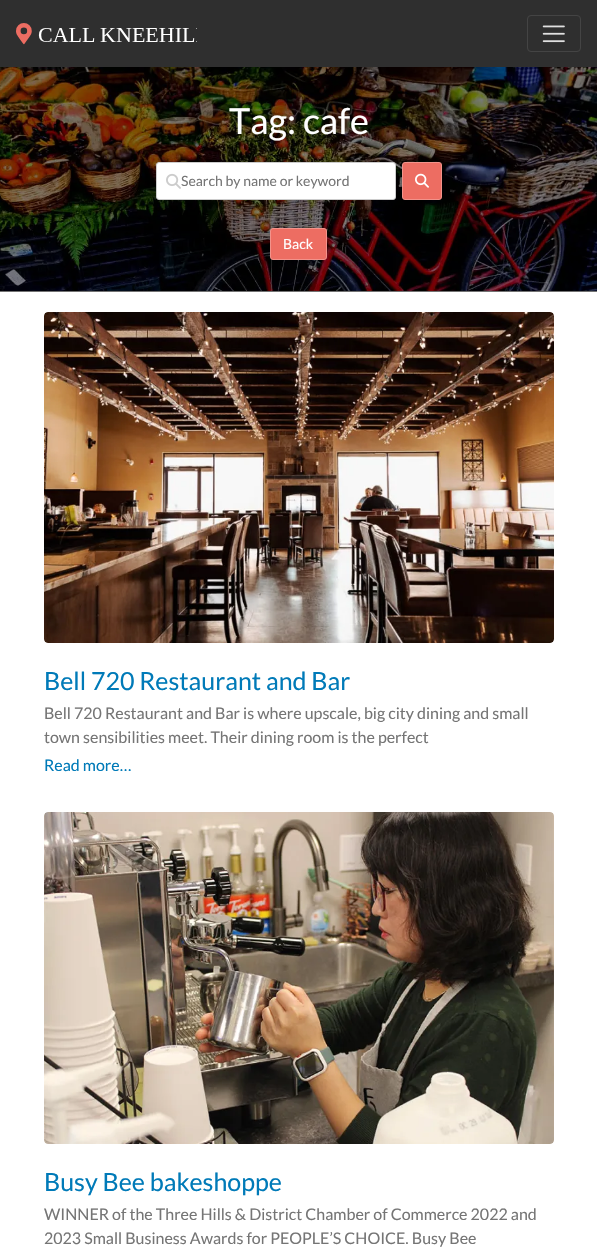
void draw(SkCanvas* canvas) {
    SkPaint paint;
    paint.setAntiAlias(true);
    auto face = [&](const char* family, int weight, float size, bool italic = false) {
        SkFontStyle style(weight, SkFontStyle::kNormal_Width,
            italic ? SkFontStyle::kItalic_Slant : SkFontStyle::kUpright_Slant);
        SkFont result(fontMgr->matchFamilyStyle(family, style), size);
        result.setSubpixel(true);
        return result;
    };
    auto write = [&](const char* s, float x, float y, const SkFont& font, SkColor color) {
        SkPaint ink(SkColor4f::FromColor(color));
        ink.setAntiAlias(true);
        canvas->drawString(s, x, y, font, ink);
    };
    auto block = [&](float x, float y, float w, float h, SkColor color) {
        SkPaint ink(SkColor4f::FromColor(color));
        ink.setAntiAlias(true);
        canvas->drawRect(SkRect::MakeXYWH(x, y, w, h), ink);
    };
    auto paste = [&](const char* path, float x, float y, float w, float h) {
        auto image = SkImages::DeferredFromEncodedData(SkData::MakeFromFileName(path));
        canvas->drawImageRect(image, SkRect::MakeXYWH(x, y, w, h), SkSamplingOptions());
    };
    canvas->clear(SK_ColorWHITE);
    block(0, 0, 597, 67, SkColorSetRGB(47, 47, 47));
    paste("pic1.png", 16, 23, 181, 22);
    paint.setStyle(SkPaint::kStroke_Style);
    paint.setStrokeWidth(1);
    paint.setColor(SkColorSetRGB(68, 68, 68));
    canvas->drawRoundRect(SkRect::MakeXYWH(527.5f, 15.5f, 53, 36), 3.5f, 3.5f, paint);
    paste("pic2.png", 542, 25, 23, 18);
    paste("pic3.png", 0, 67, 597, 224);
    block(0, 291, 597, 1, SkColorSetRGB(115, 115, 115));
    auto kFont1 = face("Lato", 400, 36);
    write("Tag: cafe", 229, 134, kFont1, SK_ColorWHITE);
    paint.setStyle(SkPaint::kFill_Style);
    paint.setColor(SK_ColorWHITE);
    canvas->drawRoundRect(SkRect::MakeXYWH(156.5f, 162.5f, 239, 37), 2.5f, 2.5f, paint);
    paint.setStyle(SkPaint::kStroke_Style);
    paint.setColor(SkColorSetRGB(204, 204, 204));
    canvas->drawRoundRect(SkRect::MakeXYWH(156.5f, 162.5f, 239, 37), 2.5f, 2.5f, paint);
    paste("pic4.png", 166, 173, 15, 16);
    auto kFont2 = face("Lato", 400, 14);
    write("Search by name or keyword", 181, 186, kFont2, SkColorSetRGB(117, 117, 117));
    paint.setStyle(SkPaint::kFill_Style);
    paint.setColor(SkColorSetRGB(237, 109, 98));
    canvas->drawRoundRect(SkRect::MakeXYWH(402.5f, 162.5f, 39, 37), 2.5f, 2.5f, paint);
    paint.setStyle(SkPaint::kStroke_Style);
    paint.setColor(SkColorSetRGB(242, 147, 139));
    canvas->drawRoundRect(SkRect::MakeXYWH(402.5f, 162.5f, 39, 37), 2.5f, 2.5f, paint);
    paste("pic5.png", 415, 173, 14, 15);
    paint.setStyle(SkPaint::kFill_Style);
    paint.setColor(SkColorSetRGB(237, 109, 98));
    canvas->drawRoundRect(SkRect::MakeXYWH(270.5f, 228.5f, 56, 31), 2.5f, 2.5f, paint);
    paint.setStyle(SkPaint::kStroke_Style);
    paint.setColor(SkColorSetRGB(242, 147, 139));
    canvas->drawRoundRect(SkRect::MakeXYWH(270.5f, 228.5f, 56, 31), 2.5f, 2.5f, paint);
    write("Back", 283, 249, kFont2, SK_ColorWHITE);
    paste("pic6.png", 44, 312, 510, 331);
    auto kFont3 = face("Lato", 400, 25);
    write("Bell 720 Restaurant and Bar", 44, 690, kFont3, SkColorSetRGB(0, 122, 184));
    auto kFont4 = face("Lato", 400, 16);
    write("Bell 720 Restaurant and Bar is where upscale, big city dining and small", 44, 719, kFont4, SkColorSetRGB(117, 117, 117));
    write("town sensibilities meet. Their dining room is the perfect", 44, 743, kFont4, SkColorSetRGB(117, 117, 117));
    write("Read more…", 44, 771, kFont4, SkColorSetRGB(0, 122, 184));
    paste("pic7.png", 44, 812, 510, 332);
    write("Busy Bee bakeshoppe", 44, 1191, kFont3, SkColorSetRGB(0, 122, 184));
    write("WINNER of the Three Hills & District Chamber of Commerce 2022 and", 44, 1220, kFont4, SkColorSetRGB(117, 117, 117));
    write("2023 Small Business Awards for PEOPLE’S CHOICE. Busy Bee", 44, 1244, kFont4, SkColorSetRGB(117, 117, 117));
}
